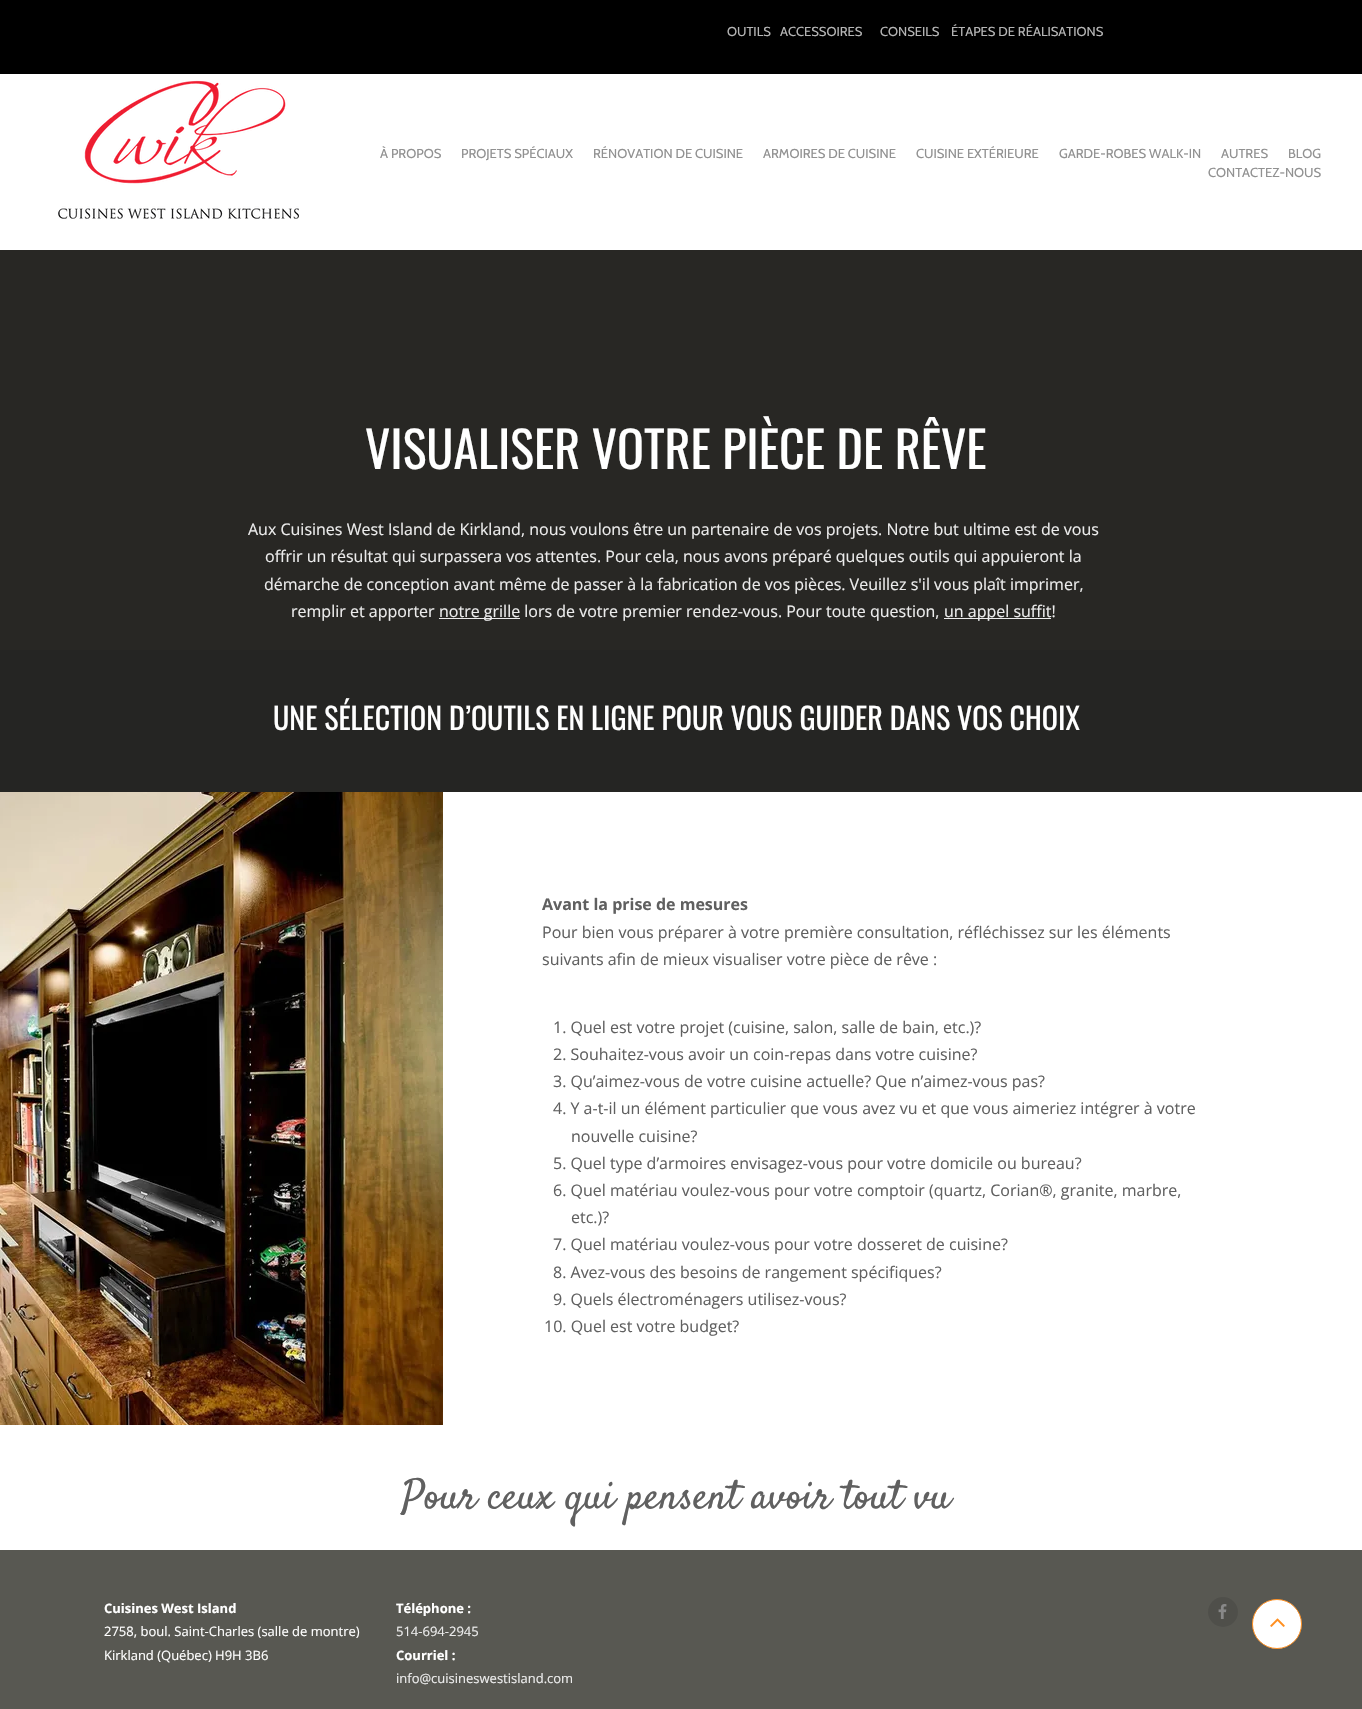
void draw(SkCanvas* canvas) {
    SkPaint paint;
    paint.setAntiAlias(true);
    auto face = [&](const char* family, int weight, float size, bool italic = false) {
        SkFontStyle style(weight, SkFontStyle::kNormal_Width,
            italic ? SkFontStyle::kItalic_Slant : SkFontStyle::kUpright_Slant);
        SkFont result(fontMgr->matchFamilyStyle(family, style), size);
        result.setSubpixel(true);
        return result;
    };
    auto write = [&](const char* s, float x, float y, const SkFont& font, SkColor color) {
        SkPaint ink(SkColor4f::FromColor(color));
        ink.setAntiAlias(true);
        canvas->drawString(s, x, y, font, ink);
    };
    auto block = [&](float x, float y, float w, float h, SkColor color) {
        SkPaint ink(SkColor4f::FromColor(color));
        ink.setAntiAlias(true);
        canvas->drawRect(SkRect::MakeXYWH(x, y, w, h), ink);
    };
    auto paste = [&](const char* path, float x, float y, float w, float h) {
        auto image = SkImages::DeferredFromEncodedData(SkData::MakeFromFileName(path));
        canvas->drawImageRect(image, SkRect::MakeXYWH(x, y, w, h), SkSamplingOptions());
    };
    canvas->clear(SK_ColorWHITE);
    block(0, 0, 1362, 74, SK_ColorBLACK);
    auto kFont1 = face("Cabin", 400, 13);
    write("OUTILS", 727, 36, kFont1, SkColorSetRGB(181, 181, 181));
    write("ACCESSOIRES", 780, 36, kFont1, SkColorSetRGB(181, 181, 181));
    write("CONSEILS", 880, 36, kFont1, SkColorSetRGB(181, 181, 181));
    write("ÉTAPES DE RÉALISATIONS", 951, 36, kFont1, SkColorSetRGB(181, 181, 181));
    paste("pic1.png", 58, 80, 241, 139);
    write("À PROPOS", 380, 158, kFont1, SkColorSetRGB(145, 145, 145));
    write("PROJETS SPÉCIAUX", 461, 158, kFont1, SkColorSetRGB(145, 145, 145));
    write("RÉNOVATION DE CUISINE", 593, 158, kFont1, SkColorSetRGB(145, 145, 145));
    write("ARMOIRES DE CUISINE", 763, 158, kFont1, SkColorSetRGB(145, 145, 145));
    write("CUISINE EXTÉRIEURE", 916, 158, kFont1, SkColorSetRGB(145, 145, 145));
    write("GARDE-ROBES WALK-IN", 1059, 158, kFont1, SkColorSetRGB(145, 145, 145));
    write("AUTRES", 1221, 158, kFont1, SkColorSetRGB(145, 145, 145));
    write("BLOG", 1288, 158, kFont1, SkColorSetRGB(145, 145, 145));
    write("CONTACTEZ-NOUS", 1208, 177, kFont1, SkColorSetRGB(145, 145, 145));
    block(0, 250, 1362, 400, SkColorSetRGB(40, 39, 36));
    auto kFont2 = face("Oswald", 400, 50);
    write("VISUALISER VOTRE PIÈCE DE RÊVE", 365, 469, kFont2, SK_ColorWHITE);
    auto kFont3 = face("Open Sans", 400, 16);
    write("Aux Cuisines West Island de Kirkland, nous voulons être un partenaire de vos projets. Notre but ultime est de vous", 248, 535, kFont3, SkColorSetRGB(236, 236, 236));
    write("offrir un résultat qui surpassera vos attentes. Pour cela, nous avons préparé quelques outils qui appuieront la", 265, 562, kFont3, SkColorSetRGB(236, 236, 236));
    write("démarche de conception avant même de passer à la fabrication de vos pièces. Veuillez s'il vous plaît imprimer,", 264, 590, kFont3, SkColorSetRGB(236, 236, 236));
    write("remplir et apporter", 291, 617, kFont3, SkColorSetRGB(236, 236, 236));
    block(439, 618, 81, 1, SkColorSetRGB(236, 236, 236));
    write("notre grille lors de votre premier rendez-vous. Pour toute question,", 439, 617, kFont3, SkColorSetRGB(236, 236, 236));
    block(944, 618, 107, 1, SkColorSetRGB(236, 236, 236));
    write("un appel suffit!", 944, 617, kFont3, SkColorSetRGB(236, 236, 236));
    block(0, 650, 1362, 142, SkColorSetRGB(37, 37, 35));
    auto kFont4 = face("Oswald", 400, 30);
    write("UNE SÉLECTION D’OUTILS EN LIGNE POUR VOUS GUIDER DANS VOS CHOIX", 273, 730, kFont4, SK_ColorWHITE);
    paste("pic2.png", 0, 792, 443, 633);
    auto kFont5 = face("Open Sans", 700, 16);
    write("Avant la prise de mesures", 542, 910, kFont5, SkColorSetRGB(96, 96, 96));
    write("Pour bien vous préparer à votre première consultation, réfléchissez sur les éléments", 542, 938, kFont3, SkColorSetRGB(96, 96, 96));
    write("suivants afin de mieux visualiser votre pièce de rêve :", 542, 965, kFont3, SkColorSetRGB(96, 96, 96));
    auto kFont6 = face("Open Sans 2", 400, 16);
    write("1. Quel est votre projet (cuisine, salon, salle de bain, etc.)?", 553, 1033, kFont6, SkColorSetRGB(96, 96, 96));
    write("2. Souhaitez-vous avoir un coin-repas dans votre cuisine?", 553, 1060, kFont6, SkColorSetRGB(96, 96, 96));
    write("3. Qu’aimez-vous de votre cuisine actuelle? Que n’aimez-vous pas?", 553, 1087, kFont6, SkColorSetRGB(96, 96, 96));
    write("4. Y a-t-il un élément particulier que vous avez vu et que vous aimeriez intégrer à votre", 553, 1114, kFont6, SkColorSetRGB(96, 96, 96));
    write("nouvelle cuisine?", 571, 1142, kFont6, SkColorSetRGB(96, 96, 96));
    write("5. Quel type d’armoires envisagez-vous pour votre domicile ou bureau?", 553, 1169, kFont6, SkColorSetRGB(96, 96, 96));
    write("6. Quel matériau voulez-vous pour votre comptoir (quartz, Corian®, granite, marbre,", 553, 1196, kFont6, SkColorSetRGB(96, 96, 96));
    write("etc.)?", 571, 1223, kFont6, SkColorSetRGB(96, 96, 96));
    write("7. Quel matériau voulez-vous pour votre dosseret de cuisine?", 553, 1250, kFont6, SkColorSetRGB(96, 96, 96));
    write("8. Avez-vous des besoins de rangement spécifiques?", 553, 1278, kFont6, SkColorSetRGB(96, 96, 96));
    write("9. Quels électroménagers utilisez-vous?", 553, 1305, kFont6, SkColorSetRGB(96, 96, 96));
    write("10. Quel est votre budget?", 544, 1332, kFont6, SkColorSetRGB(96, 96, 96));
    auto kFont7 = face("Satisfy", 400, 41);
    write("Pour ceux qui pensent avoir tout vu", 402, 1508, kFont7, SkColorSetRGB(96, 96, 96));
    block(0, 1550, 1362, 159, SkColorSetRGB(88, 88, 82));
    auto kFont8 = face("Open Sans", 700, 13);
    write("Cuisines West Island", 104, 1613, kFont8, SK_ColorWHITE);
    auto kFont9 = face("Open Sans", 400, 13);
    write("2758, boul. Saint-Charles (salle de montre)", 104, 1636, kFont9, SK_ColorWHITE);
    write("Kirkland (Québec) H9H 3B6", 104, 1660, kFont9, SK_ColorWHITE);
    write("Téléphone :", 396, 1613, kFont8, SK_ColorWHITE);
    write("514-694-2945", 396, 1636, kFont9, SkColorSetRGB(236, 236, 236));
    write("Courriel :", 396, 1660, kFont8, SK_ColorWHITE);
    write("info@cuisineswestisland.com", 396, 1683, kFont9, SkColorSetRGB(236, 236, 236));
    paint.setColor(SkColorSetRGB(79, 79, 74));
    canvas->drawCircle(1223, 1612, 15, paint);
    paste("pic3.png", 1218, 1604, 9, 15);
    paint.setColor(SK_ColorWHITE);
    canvas->drawCircle(1277, 1624, 24.5f, paint);
    paint.setStyle(SkPaint::kStroke_Style);
    paint.setStrokeWidth(1);
    paint.setColor(SkColorSetRGB(255, 143, 32));
    canvas->drawCircle(1277, 1624, 24.5f, paint);
    paste("pic4.png", 1270, 1618, 15, 9);
}
